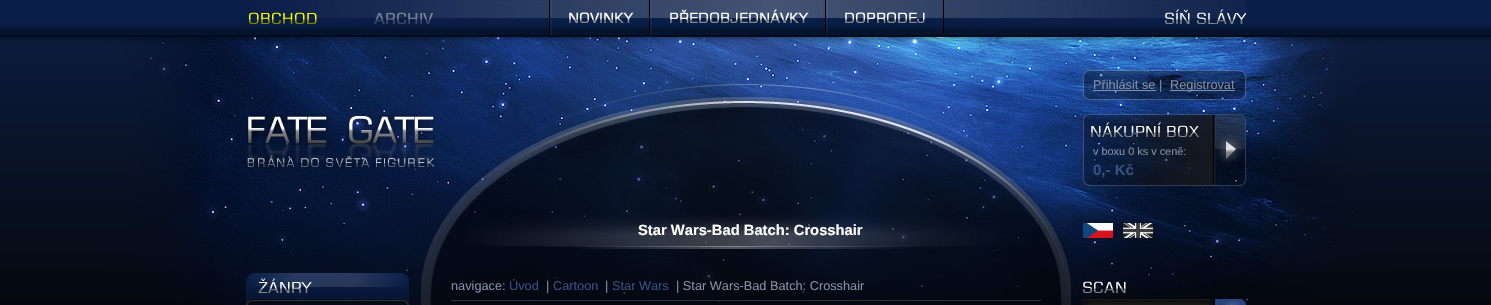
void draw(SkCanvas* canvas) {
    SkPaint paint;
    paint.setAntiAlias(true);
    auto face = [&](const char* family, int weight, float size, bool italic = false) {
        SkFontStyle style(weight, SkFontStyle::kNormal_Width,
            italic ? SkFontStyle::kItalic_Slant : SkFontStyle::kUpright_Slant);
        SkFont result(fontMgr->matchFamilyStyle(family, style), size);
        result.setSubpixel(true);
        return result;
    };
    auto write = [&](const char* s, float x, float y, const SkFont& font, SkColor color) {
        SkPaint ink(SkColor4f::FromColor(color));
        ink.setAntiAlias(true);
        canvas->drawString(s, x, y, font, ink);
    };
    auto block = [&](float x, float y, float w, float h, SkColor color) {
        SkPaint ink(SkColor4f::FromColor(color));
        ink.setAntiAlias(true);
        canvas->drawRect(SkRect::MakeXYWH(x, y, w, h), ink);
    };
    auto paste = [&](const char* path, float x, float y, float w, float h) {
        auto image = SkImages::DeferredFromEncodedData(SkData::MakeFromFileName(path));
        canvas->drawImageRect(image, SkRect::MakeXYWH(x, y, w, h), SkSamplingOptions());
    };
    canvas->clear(SK_ColorWHITE);
    paste("pic1.png", 0, 36, 1491, 269);
    paste("pic2.png", 106, 36, 1280, 269);
    paste("pic3.png", 0, 0, 1491, 36);
    paste("pic4.png", 439, 0, 723, 36);
    paste("pic5.png", 246, 0, 96, 36);
    paste("pic6.png", 342, 0, 97, 36);
    paste("pic7.png", 549, 0, 100, 36);
    paste("pic8.png", 649, 0, 176, 36);
    paste("pic9.png", 825, 0, 119, 36);
    paste("pic10.png", 1162, 0, 84, 36);
    paste("pic11.png", 1083, 70, 163, 30);
    block(1093, 90, 63, 1, SkColorSetRGB(132, 143, 164));
    auto kFont1 = face("Liberation Sans", 400, 12.75f);
    write("Přihlásit se |", 1093, 89, kFont1, SkColorSetRGB(132, 143, 164));
    block(1170, 90, 65, 1, SkColorSetRGB(132, 143, 164));
    write("Registrovat", 1170, 89, kFont1, SkColorSetRGB(132, 143, 164));
    paste("pic12.png", 246, 114, 189, 55);
    paste("pic13.png", 1083, 114, 130, 72);
    auto kFont2 = face("Liberation Sans", 400, 10.9f);
    write("v boxu 0 ks v ceně:", 1093, 155, kFont2, SkColorSetRGB(132, 143, 164));
    auto kFont3 = face("Liberation Sans", 700, 15);
    write("0,- Kč", 1093, 175, kFont3, SkColorSetRGB(55, 80, 130));
    paste("pic14.png", 1213, 114, 33, 72);
    paste("pic15.png", 246, 272, 163, 33);
    auto kFont4 = face("Liberation Sans", 700, 14.75f);
    write("Star Wars-Bad Batch: Crosshair", 638, 235, kFont4, SK_ColorWHITE);
    block(451, 300, 590, 1, SkColorSetRGB(51, 51, 51));
    write("navigace:", 451, 290, kFont1, SkColorSetRGB(132, 143, 164));
    write("Úvod", 509, 290, kFont1, SkColorSetRGB(55, 80, 130));
    write("|", 546, 290, kFont1, SkColorSetRGB(132, 143, 164));
    write("Cartoon", 553, 290, kFont1, SkColorSetRGB(55, 80, 130));
    write("|", 605, 290, kFont1, SkColorSetRGB(132, 143, 164));
    write("Star Wars", 612, 290, kFont1, SkColorSetRGB(55, 80, 130));
    write("| Star Wars-Bad Batch: Crosshair", 676, 290, kFont1, SkColorSetRGB(132, 143, 164));
    paste("pic16.png", 1083, 280, 44, 19);
    paste("pic17.png", 1083, 299, 130, 6);
    paste("pic18.png", 1213, 299, 33, 6);
    paste("pic19.png", 1083, 223, 30, 15);
    paste("pic20.png", 1123, 223, 30, 15);
}
